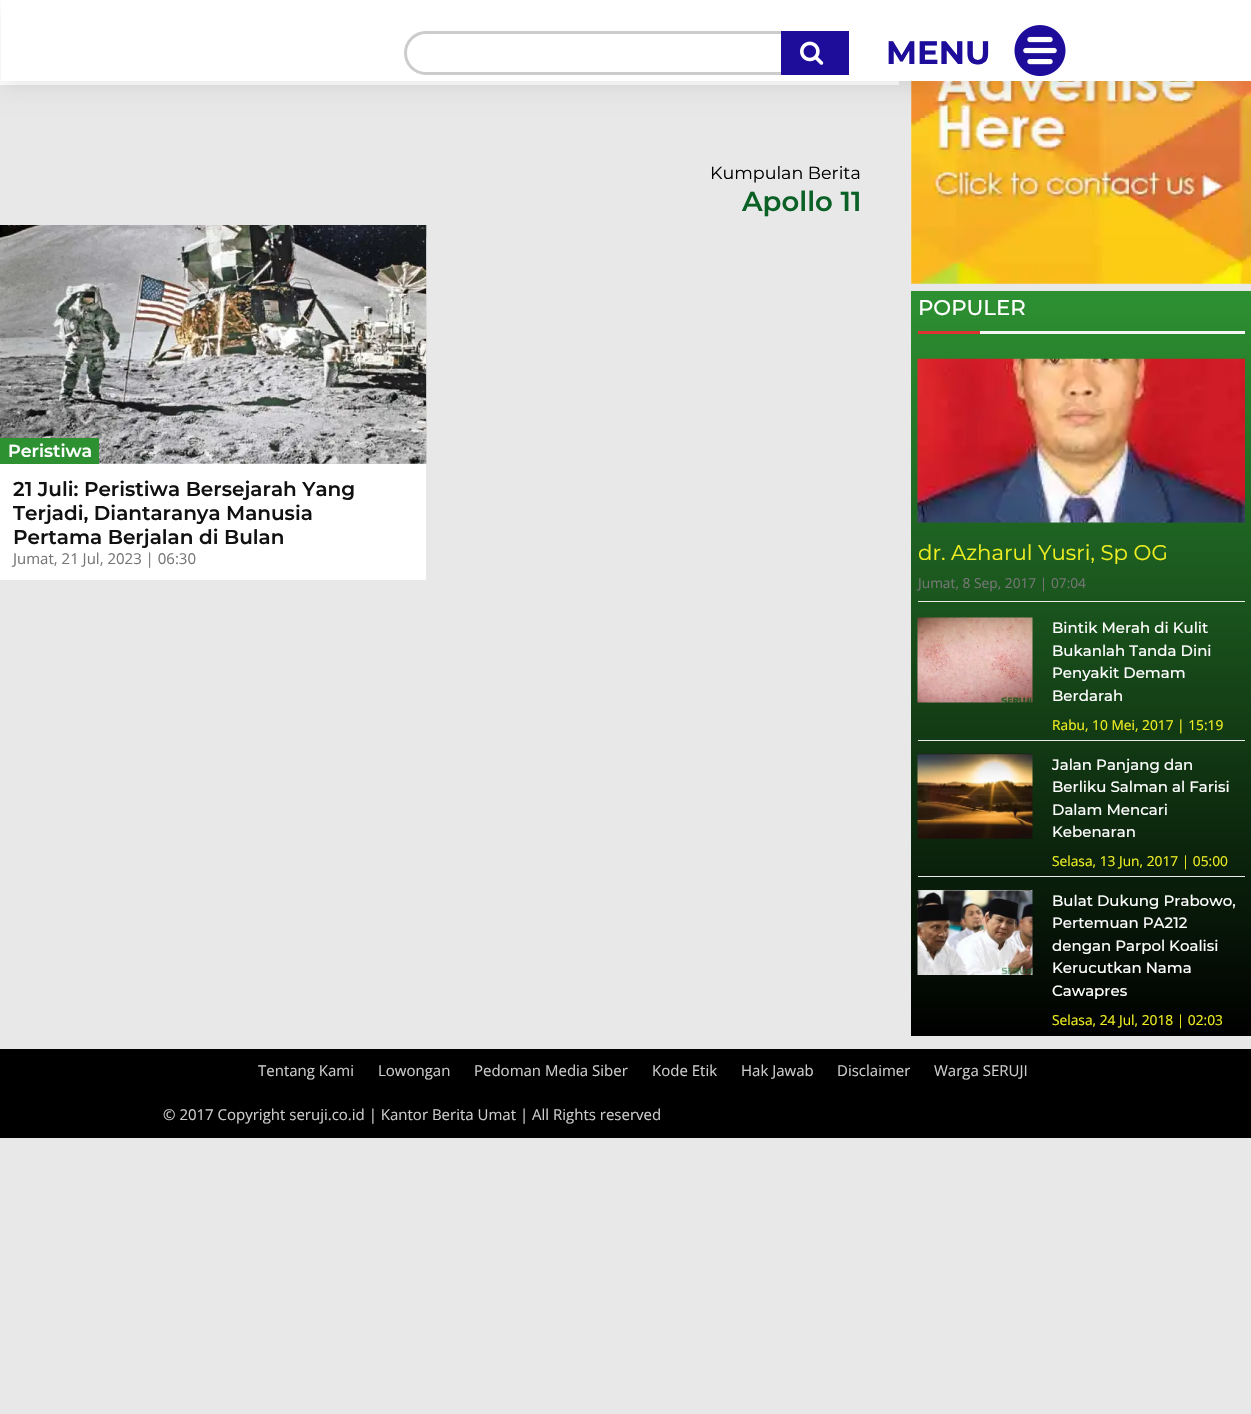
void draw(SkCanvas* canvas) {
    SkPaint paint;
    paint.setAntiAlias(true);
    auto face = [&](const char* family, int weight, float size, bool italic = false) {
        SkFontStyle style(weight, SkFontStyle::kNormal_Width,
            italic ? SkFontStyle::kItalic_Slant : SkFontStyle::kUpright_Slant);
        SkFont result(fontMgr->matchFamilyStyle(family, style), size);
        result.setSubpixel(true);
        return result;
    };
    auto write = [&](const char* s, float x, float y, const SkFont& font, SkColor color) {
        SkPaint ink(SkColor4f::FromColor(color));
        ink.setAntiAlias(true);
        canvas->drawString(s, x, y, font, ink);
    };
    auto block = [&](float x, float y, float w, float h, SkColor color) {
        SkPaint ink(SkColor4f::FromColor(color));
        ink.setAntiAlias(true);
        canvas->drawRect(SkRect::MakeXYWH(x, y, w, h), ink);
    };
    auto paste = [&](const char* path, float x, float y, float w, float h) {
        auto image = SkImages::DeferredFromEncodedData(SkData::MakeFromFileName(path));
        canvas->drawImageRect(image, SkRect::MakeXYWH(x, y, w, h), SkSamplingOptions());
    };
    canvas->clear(SkColorSetRGB(232, 232, 232));
    block(0, 0, 899, 85, SK_ColorWHITE);
    paint.setStyle(SkPaint::kStroke_Style);
    paint.setStrokeWidth(3);
    paint.setColor(SkColorSetRGB(204, 204, 204));
    canvas->drawRoundRect(SkRect::MakeXYWH(405.5f, 32.5f, 442, 41), 20.5f, 20.5f, paint);
    block(781, 31, 68, 44, SkColorSetRGB(30, 13, 155));
    paste("pic1.png", 800, 41, 24, 24);
    block(899, 0, 352, 81, SK_ColorWHITE);
    paste("pic4.png", 911, 81, 340, 203);
    canvas->save();
    canvas->clipPath(SkPathBuilder(SkPathFillType::kEvenOdd).moveTo(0, 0).lineTo(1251, 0).lineTo(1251, 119).lineTo(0, 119).close().moveTo(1, 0).lineTo(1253, 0).lineTo(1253, 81).lineTo(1, 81).close().detach(), true);
    paint.setStyle(SkPaint::kFill_Style);
    paint.setColor(SkColorSetARGB(20, 0, 0, 0));
    paint.setMaskFilter(SkMaskFilter::MakeBlur(kNormal_SkBlurStyle, 9.5f));
    canvas->drawRect(SkRect::MakeXYWH(1, 8, 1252, 81), paint);
    paint.setMaskFilter(nullptr);
    canvas->restore();
    auto kFont1 = face("Montserrat", 700, 32.5f);
    write("MENU", 886, 64, kFont1, SkColorSetRGB(30, 13, 155));
    paste("pic2.png", 1014, 25, 52, 52);
    auto kFont2 = face("Montserrat", 400, 17.5f);
    write("Kumpulan Berita", 710, 179, kFont2, SK_ColorBLACK);
    auto kFont3 = face("Montserrat", 600, 27.5f);
    write("Apollo 11", 742, 211, kFont3, SkColorSetRGB(10, 96, 37));
    block(0, 463, 426, 117, SK_ColorWHITE);
    paste("pic3.png", 0, 225, 427, 239);
    block(0, 438, 99, 26, SkColorSetRGB(45, 145, 50));
    auto kFont4 = face("Montserrat", 600, 17.5f);
    write("Peristiwa", 8, 457, kFont4, SK_ColorWHITE);
    auto kFont5 = face("Montserrat", 600, 20);
    write("21 Juli: Peristiwa Bersejarah Yang", 13, 496, kFont5, SkColorSetRGB(17, 17, 17));
    write("Terjadi, Diantaranya Manusia", 13, 520, kFont5, SkColorSetRGB(17, 17, 17));
    write("Pertama Berjalan di Bulan", 13, 544, kFont5, SkColorSetRGB(17, 17, 17));
    auto kFont6 = face("Open Sans", 400, 15);
    write("Jumat, 21 Jul, 2023 | 06:30", 13, 564, kFont6, SkColorSetRGB(118, 118, 118));
    {
        const SkColor colors[] = {SkColorSetRGB(45, 145, 50), SK_ColorBLACK};
        const float stops[] = {0, 1};
        const SkPoint ends[] = {{1081, 291}, {1081, 1036}};
        paint.setShader(SkGradientShader::MakeLinear(ends, colors, stops, 2, SkTileMode::kClamp));
        paint.setAlpha(255);
    }
    canvas->drawRect(SkRect::MakeXYWH(911, 291, 340, 745), paint);
    auto kFont7 = face("Montserrat", 500, 21.25f);
    write("POPULER", 918, 315, kFont7, SK_ColorWHITE);
    block(918, 331, 62, 3, SkColorSetRGB(221, 51, 51));
    block(980, 331, 265, 3, SkColorSetRGB(245, 245, 245));
    paste("pic5.png", 917, 358, 328, 165);
    auto kFont8 = face("Montserrat", 400, 21.25f);
    write("dr. Azharul Yusri, Sp OG", 918, 560, kFont8, SkColorSetRGB(238, 238, 34));
    auto kFont9 = face("Open Sans", 400, 13.75f);
    write("Jumat, 8 Sep, 2017 | 07:04", 918, 588, kFont9, SkColorSetRGB(118, 118, 118));
    block(918, 601, 327, 1, SkColorSetRGB(234, 234, 234));
    paste("pic6.png", 917, 617, 116, 86);
    auto kFont10 = face("Montserrat", 500, 15);
    write("Bintik Merah di Kulit", 1052, 633, kFont10, SK_ColorWHITE);
    write("Bukanlah Tanda Dini", 1052, 656, kFont10, SK_ColorWHITE);
    write("Penyakit Demam", 1052, 678, kFont10, SK_ColorWHITE);
    write("Berdarah", 1052, 701, kFont10, SK_ColorWHITE);
    write("Rabu, 10 Mei, 2017 | 15:19", 1052, 730, kFont9, SkColorSetRGB(238, 238, 34));
    block(918, 740, 327, 1, SkColorSetRGB(234, 234, 234));
    paste("pic7.png", 917, 753, 116, 86);
    write("Jalan Panjang dan", 1052, 770, kFont10, SK_ColorWHITE);
    write("Berliku Salman al Farisi", 1052, 792, kFont10, SK_ColorWHITE);
    write("Dalam Mencari", 1052, 815, kFont10, SK_ColorWHITE);
    write("Kebenaran", 1052, 837, kFont10, SK_ColorWHITE);
    write("Selasa, 13 Jun, 2017 | 05:00", 1052, 866, kFont9, SkColorSetRGB(238, 238, 34));
    block(918, 876, 327, 1, SkColorSetRGB(234, 234, 234));
    paste("pic8.png", 917, 890, 116, 85);
    write("Bulat Dukung Prabowo,", 1052, 906, kFont10, SK_ColorWHITE);
    write("Pertemuan PA212", 1052, 928, kFont10, SK_ColorWHITE);
    write("dengan Parpol Koalisi", 1052, 951, kFont10, SK_ColorWHITE);
    write("Kerucutkan Nama", 1052, 973, kFont10, SK_ColorWHITE);
    write("Cawapres", 1052, 996, kFont10, SK_ColorWHITE);
    write("Selasa, 24 Jul, 2018 | 02:03", 1052, 1025, kFont9, SkColorSetRGB(238, 238, 34));
    block(0, 1049, 1251, 89, SK_ColorBLACK);
    write("Tentang Kami", 258, 1076, kFont6, SkColorSetRGB(204, 204, 204));
    write("Lowongan", 378, 1076, kFont6, SkColorSetRGB(204, 204, 204));
    write("Pedoman Media Siber", 474, 1076, kFont6, SkColorSetRGB(204, 204, 204));
    write("Kode Etik", 652, 1076, kFont6, SkColorSetRGB(204, 204, 204));
    write("Hak Jawab", 741, 1076, kFont6, SkColorSetRGB(204, 204, 204));
    write("Disclaimer", 837, 1076, kFont6, SkColorSetRGB(204, 204, 204));
    write("Warga SERUJI", 934, 1076, kFont6, SkColorSetRGB(204, 204, 204));
    write("© 2017 Copyright seruji.co.id | Kantor Berita Umat | All Rights reserved", 163, 1120, kFont6, SkColorSetRGB(204, 204, 204));
}
